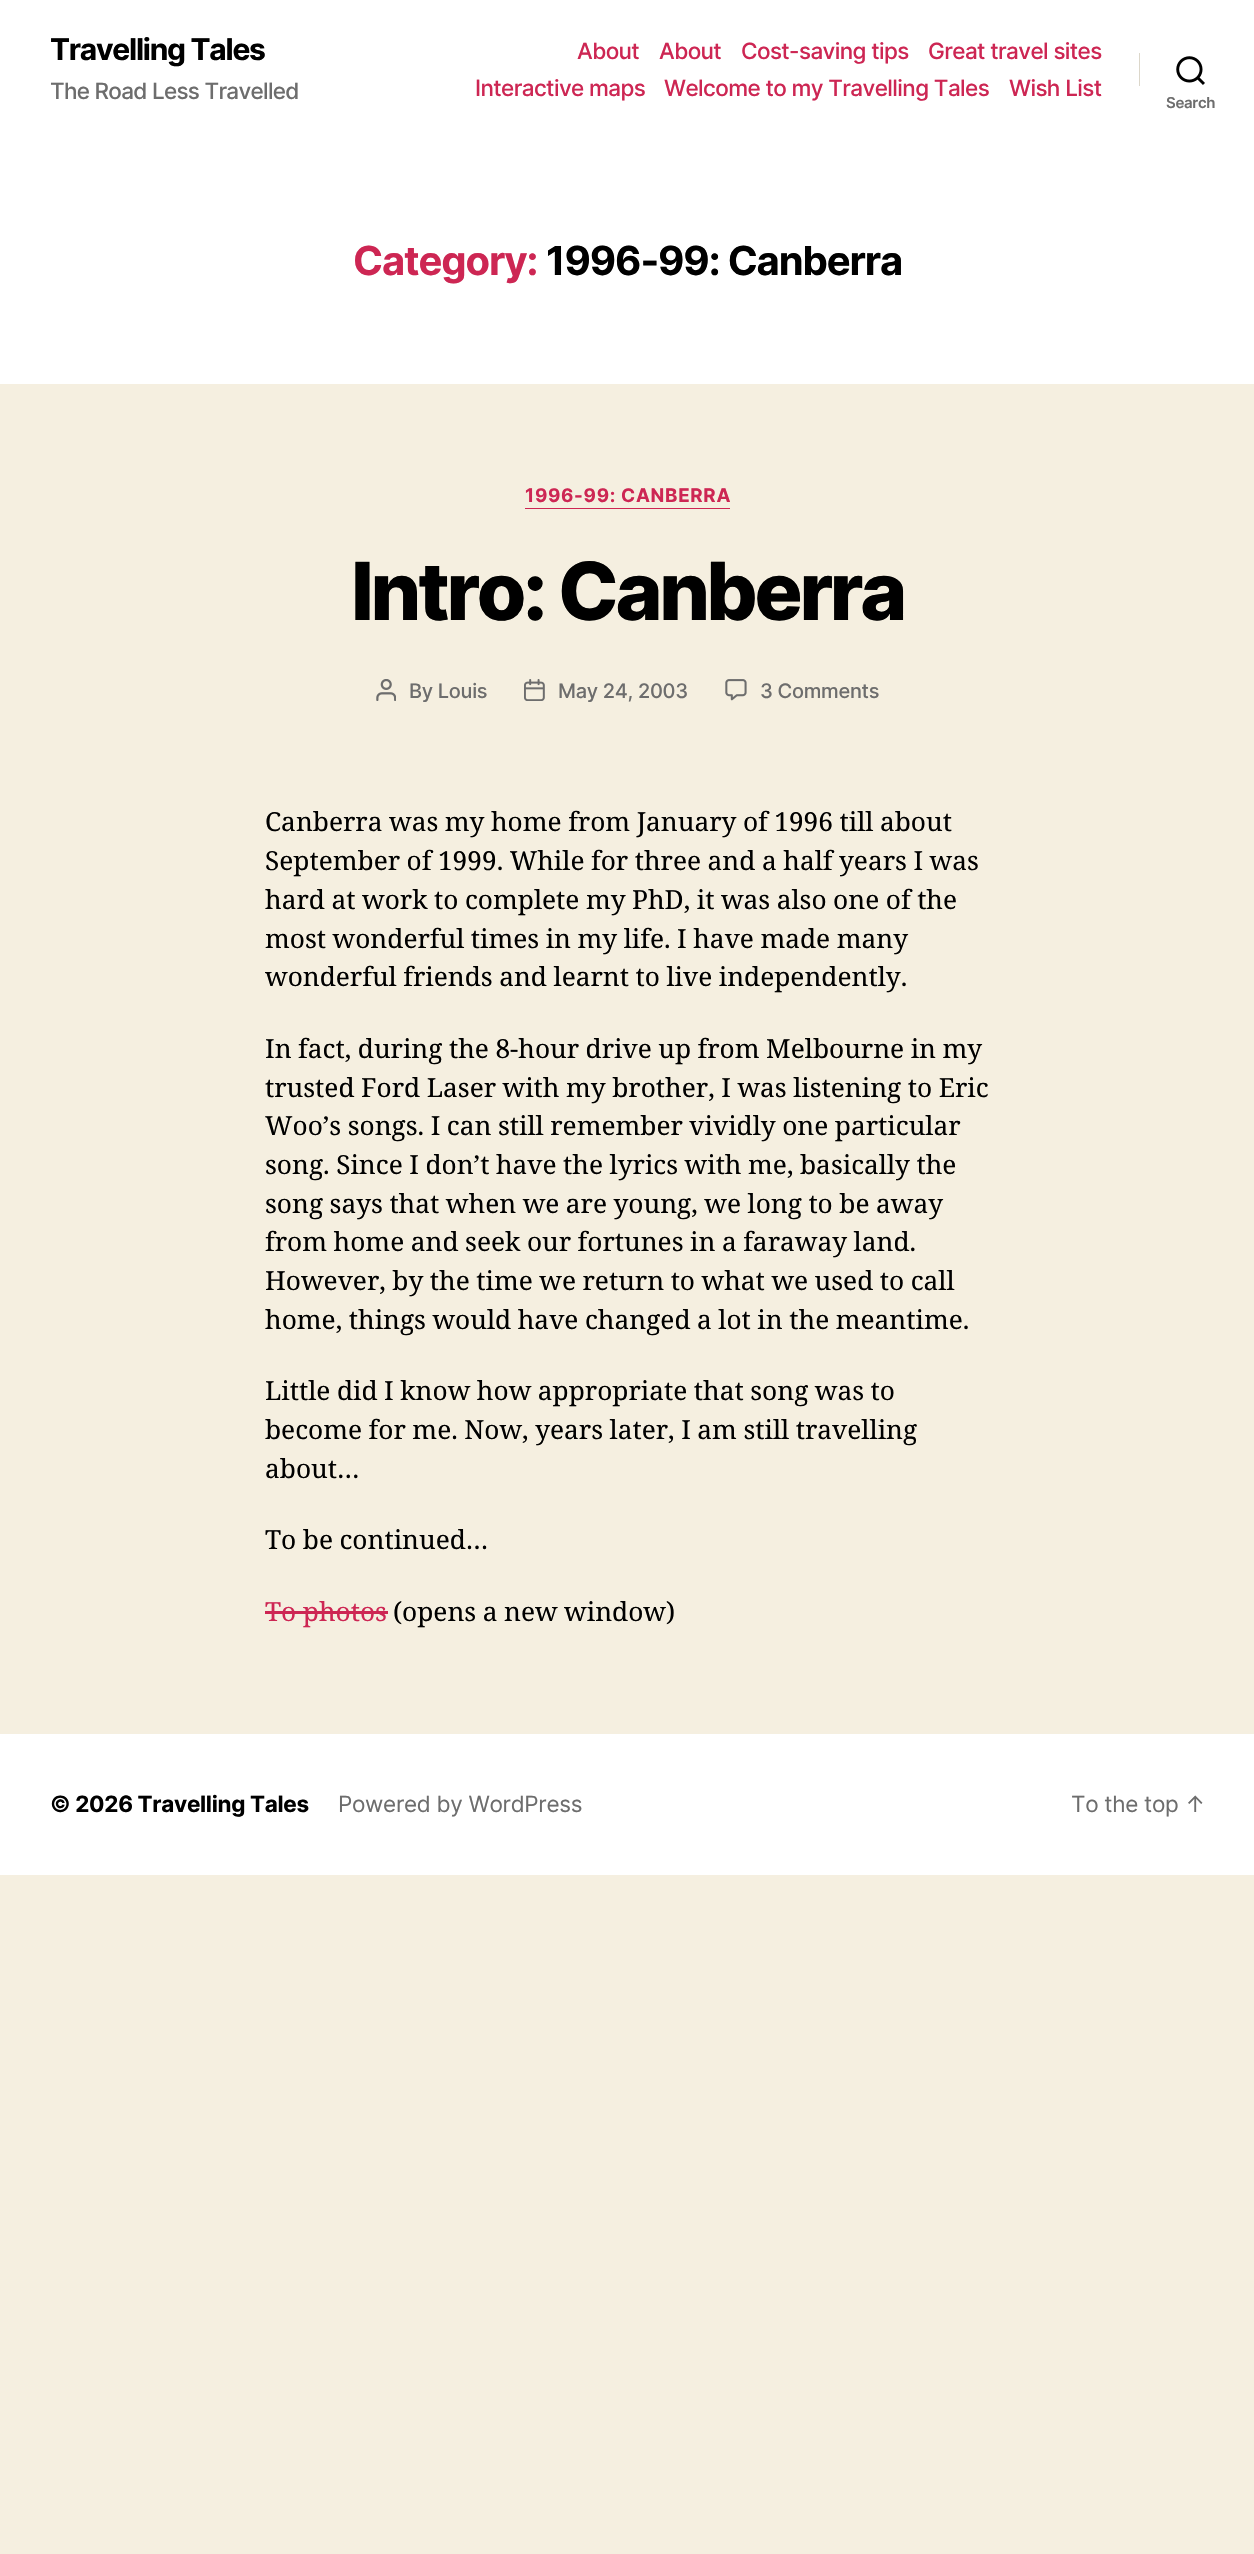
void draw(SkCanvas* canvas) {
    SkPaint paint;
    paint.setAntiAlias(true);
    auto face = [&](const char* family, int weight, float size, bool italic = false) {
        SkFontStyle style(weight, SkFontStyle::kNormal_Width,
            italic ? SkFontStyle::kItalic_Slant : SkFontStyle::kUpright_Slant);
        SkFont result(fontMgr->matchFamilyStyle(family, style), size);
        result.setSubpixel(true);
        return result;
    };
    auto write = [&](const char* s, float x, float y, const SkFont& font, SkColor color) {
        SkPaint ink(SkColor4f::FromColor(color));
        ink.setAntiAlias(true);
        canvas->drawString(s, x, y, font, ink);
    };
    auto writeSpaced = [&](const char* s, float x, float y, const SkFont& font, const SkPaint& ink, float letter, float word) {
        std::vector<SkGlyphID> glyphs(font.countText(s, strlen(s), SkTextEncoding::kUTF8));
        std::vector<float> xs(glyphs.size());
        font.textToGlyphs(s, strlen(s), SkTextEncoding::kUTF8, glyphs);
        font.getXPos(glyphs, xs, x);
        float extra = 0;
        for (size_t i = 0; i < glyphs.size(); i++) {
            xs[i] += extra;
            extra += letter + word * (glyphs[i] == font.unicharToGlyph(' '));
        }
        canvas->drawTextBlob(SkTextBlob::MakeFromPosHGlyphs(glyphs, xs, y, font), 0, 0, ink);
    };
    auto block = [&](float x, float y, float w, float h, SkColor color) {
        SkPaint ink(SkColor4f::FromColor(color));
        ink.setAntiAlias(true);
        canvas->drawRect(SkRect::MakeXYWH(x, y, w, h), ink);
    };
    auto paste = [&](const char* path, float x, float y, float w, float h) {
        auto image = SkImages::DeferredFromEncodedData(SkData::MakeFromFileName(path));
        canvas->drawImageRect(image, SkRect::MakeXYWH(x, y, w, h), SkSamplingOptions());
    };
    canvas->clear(SkColorSetRGB(245, 239, 224));
    block(0, 0, 1254, 384, SK_ColorWHITE);
    auto kFont1 = face("Inter", 700, 30);
    paint.setColor(SK_ColorBLACK);
    writeSpaced("Travelling Tales", 50, 60, kFont1, paint, -1.25f, 0);
    auto kFont2 = face("Inter", 500, 22.5f);
    paint.setColor(SkColorSetRGB(109, 109, 109));
    writeSpaced("The Road Less Travelled", 50, 99, kFont2, paint, -0.7f, 0);
    paint.setColor(SkColorSetRGB(205, 38, 83));
    writeSpaced("About", 577, 59, kFont2, paint, -0.6f, 0);
    writeSpaced("About", 659, 59, kFont2, paint, -0.6f, 0);
    writeSpaced("Cost-saving tips", 741, 59, kFont2, paint, -0.6f, 0);
    writeSpaced("Great travel sites", 928, 59, kFont2, paint, -0.6f, 0);
    writeSpaced("Interactive maps", 475, 96, kFont2, paint, -0.6f, 0);
    writeSpaced("Welcome to my Travelling Tales", 664, 96, kFont2, paint, -0.6f, 0);
    writeSpaced("Wish List", 1009, 96, kFont2, paint, -0.6f, 0);
    block(1139, 53, 1, 33, SkColorSetRGB(220, 215, 202));
    paste("pic1.png", 1176, 56, 29, 29);
    auto kFont3 = face("Inter", 600, 15);
    paint.setColor(SkColorSetRGB(109, 109, 109));
    writeSpaced("Search", 1166, 108, kFont3, paint, -0.3f, 0);
    auto kFont4 = face("Inter", 700, 40);
    paint.setColor(SkColorSetRGB(205, 38, 83));
    writeSpaced("Category:", 353, 275, kFont4, paint, -1.1f, 0);
    paint.setColor(SK_ColorBLACK);
    writeSpaced("1996-99: Canberra", 546, 275, kFont4, paint, -1.1f, 0);
    block(525, 508, 205, 1, SkColorSetRGB(205, 38, 83));
    auto kFont5 = face("Inter", 700, 18.75f);
    paint.setColor(SkColorSetRGB(205, 38, 83));
    writeSpaced("1996-99: CANBERRA", 525, 502, kFont5, paint, 0.7f, 0);
    auto kFont6 = face("Inter", 800, 80);
    paint.setColor(SK_ColorBLACK);
    writeSpaced("Intro: Canberra", 351, 620, kFont6, paint, -3.3f, 0);
    paste("pic2.png", 376, 679, 20, 22);
    auto kFont7 = face("Inter", 500, 20);
    paint.setColor(SkColorSetRGB(109, 109, 109));
    writeSpaced("By Louis", 409, 698, kFont7, paint, -0.3f, 0);
    paste("pic3.png", 524, 679, 21, 22);
    writeSpaced("May 24, 2003", 558, 698, kFont7, paint, -0.3f, 0);
    paste("pic4.png", 725, 679, 22, 22);
    writeSpaced("3 Comments", 760, 698, kFont7, paint, -0.3f, 0);
    auto kFont8 = face("Noto Serif", 400, 26.25f);
    paint.setColor(SK_ColorBLACK);
    writeSpaced("Canberra was my home from January of 1996 till about", 265, 831, kFont8, paint, 0, -0.3f);
    writeSpaced("September of 1999. While for three and a half years I was", 265, 870, kFont8, paint, 0, -0.3f);
    writeSpaced("hard at work to complete my PhD, it was also one of the", 265, 909, kFont8, paint, 0, -0.3f);
    writeSpaced("most wonderful times in my life. I have made many", 265, 948, kFont8, paint, 0, -0.3f);
    writeSpaced("wonderful friends and learnt to live independently.", 265, 986, kFont8, paint, 0, -0.3f);
    writeSpaced("In fact, during the 8-hour drive up from Melbourne in my", 265, 1058, kFont8, paint, 0, -0.3f);
    writeSpaced("trusted Ford Laser with my brother, I was listening to Eric", 265, 1097, kFont8, paint, 0, -0.3f);
    writeSpaced("Woo’s songs. I can still remember vividly one particular", 265, 1135, kFont8, paint, 0, -0.3f);
    writeSpaced("song. Since I don’t have the lyrics with me, basically the", 265, 1174, kFont8, paint, 0, -0.3f);
    writeSpaced("song says that when we are young, we long to be away", 265, 1213, kFont8, paint, 0, -0.3f);
    writeSpaced("from home and seek our fortunes in a faraway land.", 265, 1251, kFont8, paint, 0, -0.3f);
    writeSpaced("However, by the time we return to what we used to call", 265, 1290, kFont8, paint, 0, -0.3f);
    writeSpaced("home, things would have changed a lot in the meantime.", 265, 1329, kFont8, paint, 0, -0.3f);
    writeSpaced("Little did I know how appropriate that song was to", 265, 1400, kFont8, paint, 0, -0.3f);
    writeSpaced("become for me. Now, years later, I am still travelling", 265, 1439, kFont8, paint, 0, -0.3f);
    write("about…", 265, 1478, kFont8, SK_ColorBLACK);
    writeSpaced("To be continued…", 265, 1549, kFont8, paint, 0, -0.3f);
    paint.setColor(SkColorSetRGB(205, 38, 83));
    writeSpaced("To photos", 265, 1621, kFont8, paint, 0, -0.3f);
    block(265, 1611, 123, 3, SkColorSetRGB(205, 38, 83));
    paint.setColor(SK_ColorBLACK);
    writeSpaced("(opens a new window)", 393, 1621, kFont8, paint, 0, -0.3f);
    block(0, 1734, 1254, 141, SK_ColorWHITE);
    auto kFont9 = face("Inter", 700, 22.5f);
    writeSpaced("© 2026 Travelling Tales", 50, 1812, kFont9, paint, -0.3f, 0);
    auto kFont10 = face("Inter", 400, 22.5f);
    paint.setColor(SkColorSetRGB(109, 109, 109));
    writeSpaced("Powered by WordPress", 338, 1812, kFont10, paint, -0.3f, 0);
    writeSpaced("To the top ↑", 1071, 1812, kFont10, paint, -0.3f, 0);
}
